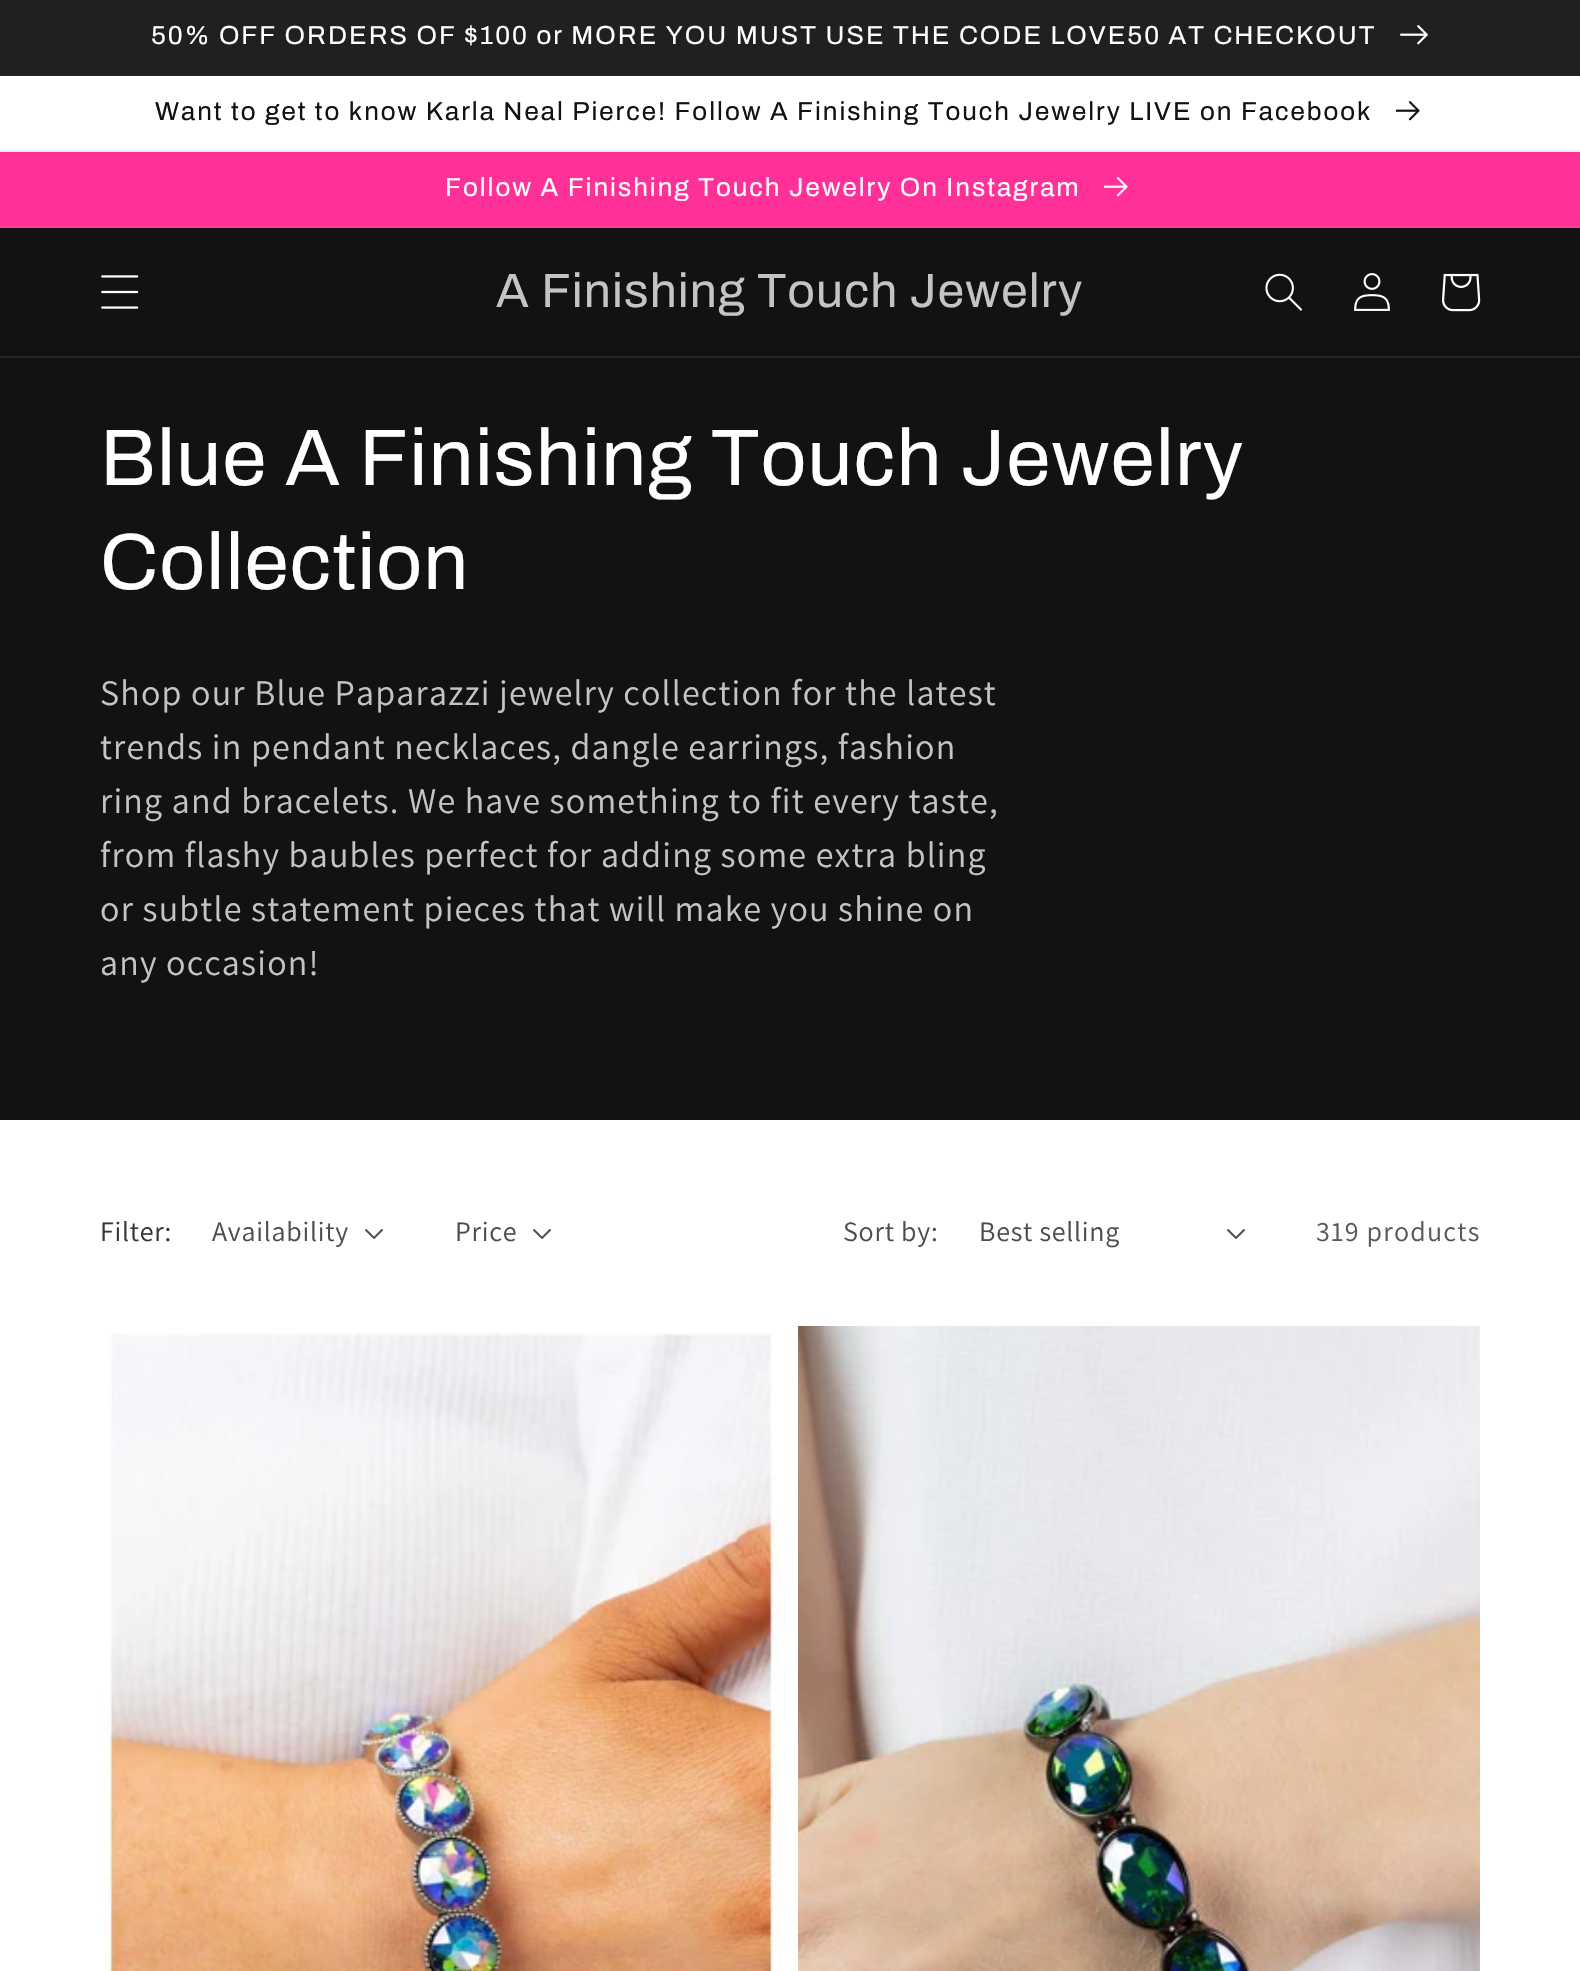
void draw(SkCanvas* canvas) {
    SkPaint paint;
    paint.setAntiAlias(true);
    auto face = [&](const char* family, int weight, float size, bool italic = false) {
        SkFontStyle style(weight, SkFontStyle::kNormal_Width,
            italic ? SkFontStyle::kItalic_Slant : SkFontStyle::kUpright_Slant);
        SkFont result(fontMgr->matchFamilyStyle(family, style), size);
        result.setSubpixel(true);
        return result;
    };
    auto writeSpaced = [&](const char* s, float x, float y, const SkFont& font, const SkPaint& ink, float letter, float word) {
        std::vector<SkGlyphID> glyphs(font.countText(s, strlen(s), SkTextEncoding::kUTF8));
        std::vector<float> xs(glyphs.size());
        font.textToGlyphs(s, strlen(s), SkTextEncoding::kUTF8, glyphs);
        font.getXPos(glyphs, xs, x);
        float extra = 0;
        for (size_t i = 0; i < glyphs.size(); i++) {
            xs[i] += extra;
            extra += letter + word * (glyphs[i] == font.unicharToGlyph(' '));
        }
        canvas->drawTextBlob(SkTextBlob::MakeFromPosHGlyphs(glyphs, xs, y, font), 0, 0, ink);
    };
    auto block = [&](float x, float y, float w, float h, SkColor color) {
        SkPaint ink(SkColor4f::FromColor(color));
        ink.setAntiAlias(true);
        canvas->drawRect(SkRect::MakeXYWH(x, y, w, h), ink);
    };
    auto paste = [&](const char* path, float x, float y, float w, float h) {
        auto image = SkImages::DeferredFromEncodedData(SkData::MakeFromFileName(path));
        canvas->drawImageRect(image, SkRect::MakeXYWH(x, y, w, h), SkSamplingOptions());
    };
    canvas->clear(SK_ColorWHITE);
    block(0, 74, 1580, 2, SkColorSetRGB(37, 37, 37));
    block(0, 0, 1580, 74, SkColorSetRGB(32, 32, 32));
    auto kFont1 = face("Archivo", 400, 26);
    paint.setColor(SK_ColorWHITE);
    writeSpaced("50% OFF ORDERS OF $100 or MORE YOU MUST USE THE CODE LOVE50 AT CHECKOUT", 151, 44, kFont1, paint, 2, 0);
    paste("pic1.png", 1400, 25, 28, 20);
    block(0, 150, 1580, 2, SkColorSetRGB(236, 236, 236));
    paint.setColor(SkColorSetRGB(18, 18, 18));
    writeSpaced("Want to get to know Karla Neal Pierce! Follow A Finishing Touch Jewelry LIVE on Facebook", 155, 120, kFont1, paint, 2, 0);
    paste("pic2.png", 1396, 101, 24, 20);
    block(0, 152, 1580, 74, SkColorSetRGB(255, 48, 152));
    block(0, 226, 1580, 2, SkColorSetRGB(255, 65, 160));
    paint.setColor(SK_ColorWHITE);
    writeSpaced("Follow A Finishing Touch Jewelry On Instagram", 445, 196, kFont1, paint, 2, 0);
    paste("pic3.png", 1104, 177, 24, 20);
    block(0, 228, 1580, 128, SkColorSetRGB(18, 18, 18));
    block(0, 356, 1580, 2, SkColorSetRGB(37, 37, 37));
    paste("pic4.png", 101, 275, 38, 34);
    auto kFont2 = face("Archivo", 400, 48);
    paint.setColor(SkColorSetRGB(196, 196, 196));
    writeSpaced("A Finishing Touch Jewelry", 496, 307, kFont2, paint, 1.2f, 0);
    paste("pic5.png", 1265, 273, 37, 38);
    paste("pic6.png", 1354, 273, 36, 38);
    paste("pic7.png", 1442, 273, 39, 39);
    block(0, 358, 1580, 762, SkColorSetRGB(18, 18, 18));
    auto kFont3 = face("Archivo", 400, 80);
    paint.setColor(SK_ColorWHITE);
    writeSpaced("Blue A Finishing Touch Jewelry", 100, 485, kFont3, paint, 1.2f, 0);
    writeSpaced("Collection", 100, 589, kFont3, paint, 1.2f, 0);
    auto kFont4 = face("Assistant", 400, 36);
    paint.setColor(SkColorSetRGB(196, 196, 196));
    writeSpaced("Shop our Blue Paparazzi jewelry collection for the latest", 100, 705, kFont4, paint, 1.2f, 0);
    writeSpaced("trends in pendant necklaces, dangle earrings, fashion", 100, 759, kFont4, paint, 1.2f, 0);
    writeSpaced("ring and bracelets. We have something to fit every taste,", 100, 813, kFont4, paint, 1.2f, 0);
    writeSpaced("from flashy baubles perfect for adding some extra bling", 100, 867, kFont4, paint, 1.2f, 0);
    writeSpaced("or subtle statement pieces that will make you shine on", 100, 921, kFont4, paint, 1.2f, 0);
    writeSpaced("any occasion!", 100, 975, kFont4, paint, 1.2f, 0);
    auto kFont5 = face("Assistant", 400, 28);
    paint.setColor(SkColorSetRGB(54, 54, 54));
    writeSpaced("Filter:", 100, 1241, kFont5, paint, 0.75f, 0);
    paint.setColor(SkColorSetRGB(77, 77, 77));
    writeSpaced("Availability", 212, 1241, kFont5, paint, 0.75f, 0);
    paste("pic8.png", 365, 1229, 18, 10);
    writeSpaced("Price", 455, 1241, kFont5, paint, 0.75f, 0);
    paste("pic8.png", 533, 1229, 18, 10);
    writeSpaced("Sort by:", 843, 1241, kFont5, paint, 0.75f, 0);
    writeSpaced("Best selling", 979, 1241, kFont5, paint, 0.75f, 0);
    paste("pic8.png", 1227, 1229, 18, 10);
    paint.setColor(SkColorSetRGB(89, 89, 89));
    writeSpaced("319 products", 1316, 1241, kFont5, paint, 1.2f, 0);
    paste("pic9.png", 100, 1326, 682, 645);
    paste("pic10.png", 798, 1326, 682, 645);
}
